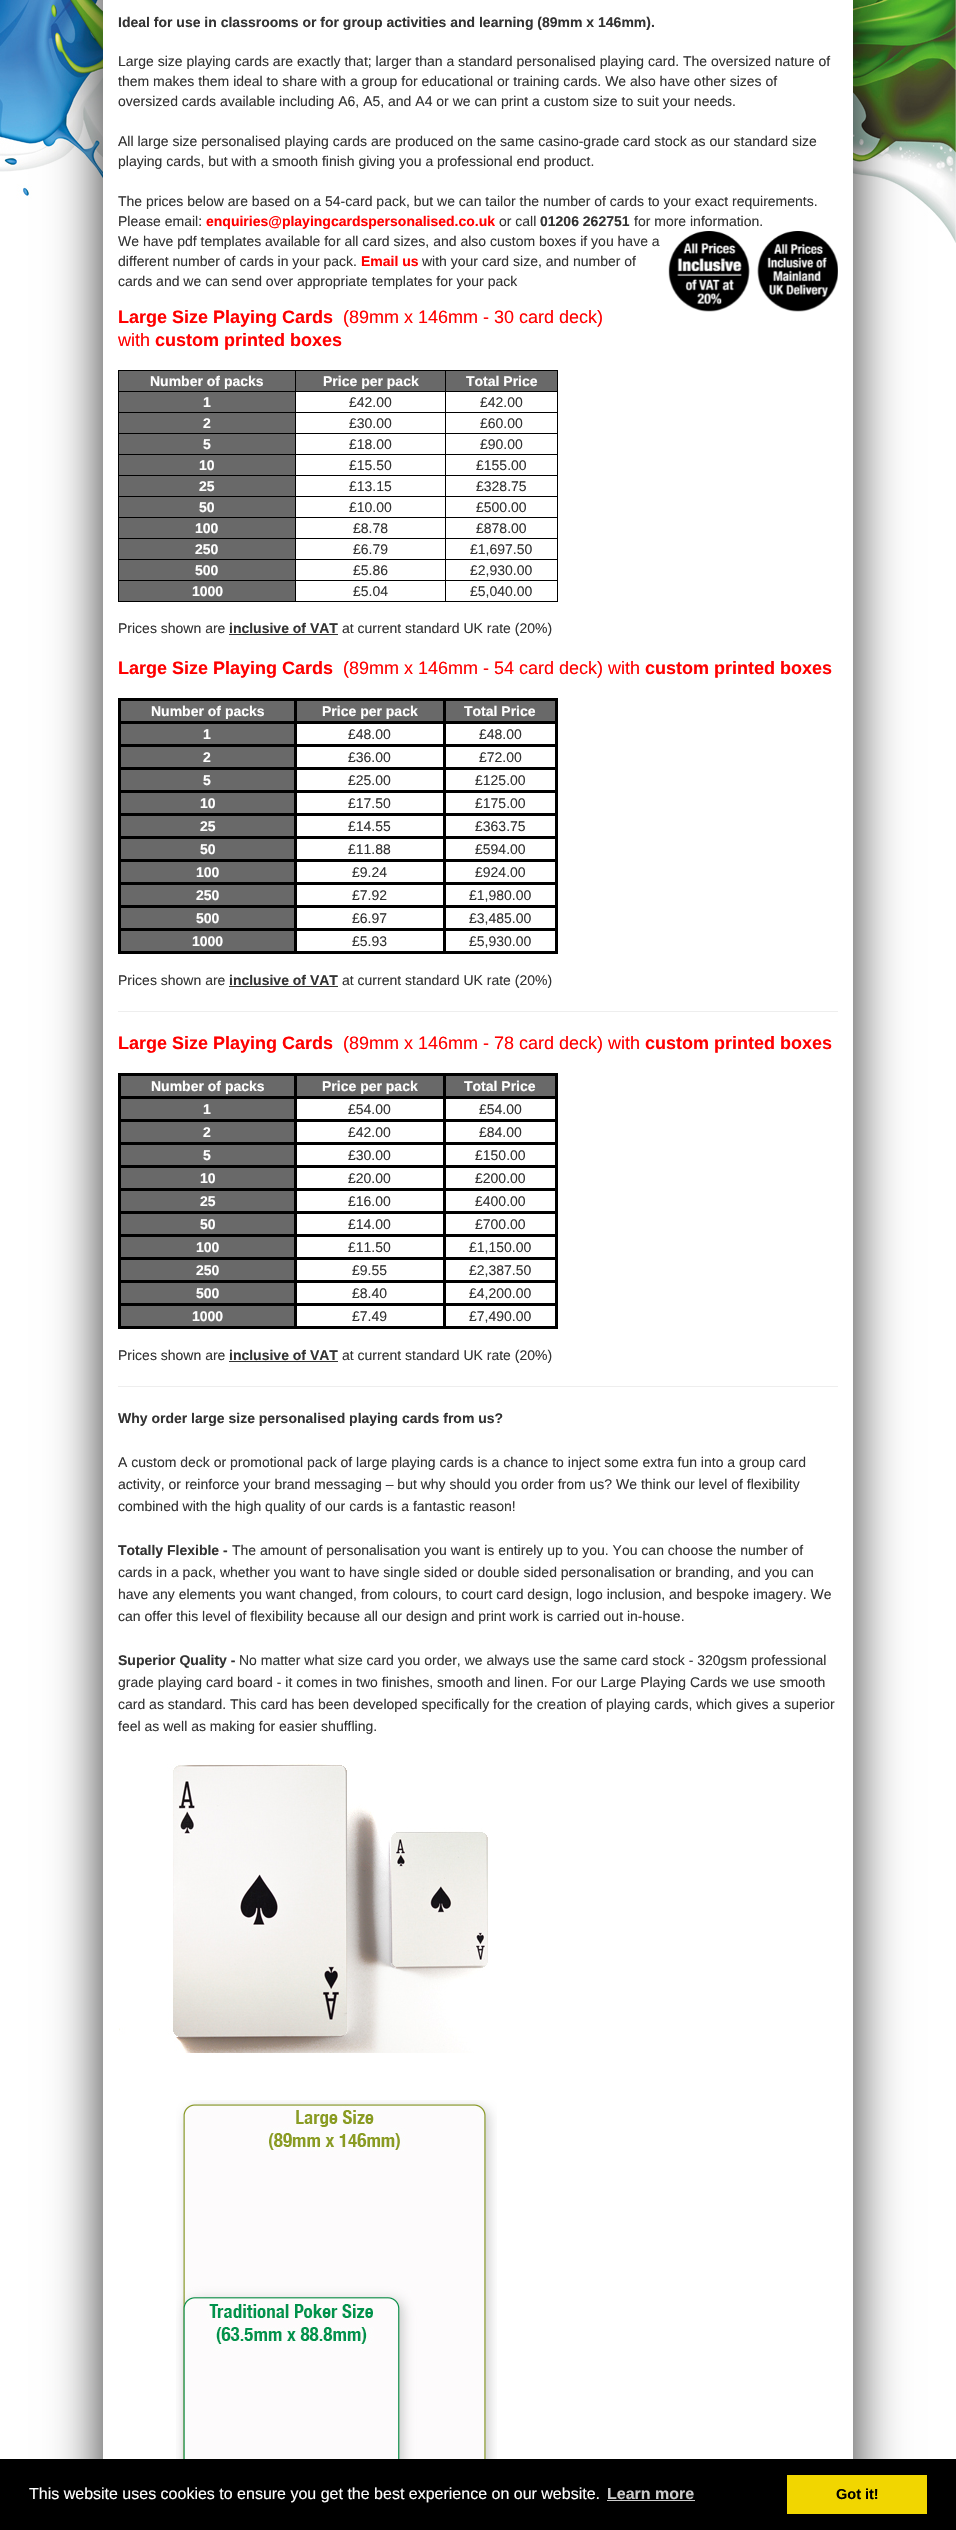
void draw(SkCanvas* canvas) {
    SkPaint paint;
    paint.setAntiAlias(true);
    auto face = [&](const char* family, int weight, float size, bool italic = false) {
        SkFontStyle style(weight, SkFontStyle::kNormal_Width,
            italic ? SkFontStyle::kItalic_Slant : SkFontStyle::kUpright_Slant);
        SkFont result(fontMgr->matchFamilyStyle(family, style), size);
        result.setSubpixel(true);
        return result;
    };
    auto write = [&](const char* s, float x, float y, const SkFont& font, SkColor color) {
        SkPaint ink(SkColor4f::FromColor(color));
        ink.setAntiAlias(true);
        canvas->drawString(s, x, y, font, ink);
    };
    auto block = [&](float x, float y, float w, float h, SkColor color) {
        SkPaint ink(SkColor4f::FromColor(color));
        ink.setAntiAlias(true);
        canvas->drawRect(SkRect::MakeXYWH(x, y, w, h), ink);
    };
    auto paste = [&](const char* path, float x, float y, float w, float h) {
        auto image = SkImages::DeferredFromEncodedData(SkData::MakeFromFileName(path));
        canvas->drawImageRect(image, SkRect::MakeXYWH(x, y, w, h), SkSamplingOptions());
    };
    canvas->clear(SK_ColorWHITE);
    paste("pic1.png", 0, 0, 103, 243);
    paste("pic5.png", 853, 0, 103, 243);
    paint.setColor(SkColorSetARGB(204, 0, 0, 0));
    paint.setMaskFilter(SkMaskFilter::MakeBlur(kNormal_SkBlurStyle, 25));
    canvas->drawRect(SkRect::MakeXYWH(103, -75, 750, 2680), paint);
    paint.setMaskFilter(nullptr);
    block(103, 0, 750, 2459, SK_ColorWHITE);
    auto kFont1 = face("Liberation Sans", 700, 14);
    write("Ideal for use in classrooms or for group activities and learning (89mm x 146mm).", 118, 27, kFont1, SkColorSetRGB(51, 51, 51));
    auto kFont2 = face("Liberation Sans", 400, 14);
    write("Large size playing cards are exactly that; larger than a standard personalised playing card. The oversized nature of", 118, 66, kFont2, SkColorSetRGB(51, 51, 51));
    write("them makes them ideal to share with a group for educational or training cards. We also have other sizes of", 118, 86, kFont2, SkColorSetRGB(51, 51, 51));
    write("oversized cards available including A6, A5, and A4 or we can print a custom size to suit your needs.", 118, 106, kFont2, SkColorSetRGB(51, 51, 51));
    write("All large size personalised playing cards are produced on the same casino-grade card stock as our standard size", 118, 146, kFont2, SkColorSetRGB(51, 51, 51));
    write("playing cards, but with a smooth finish giving you a professional end product.", 118, 166, kFont2, SkColorSetRGB(51, 51, 51));
    write("The prices below are based on a 54-card pack, but we can tailor the number of cards to your exact requirements.", 118, 206, kFont2, SkColorSetRGB(51, 51, 51));
    write("Please email:", 118, 226, kFont2, SkColorSetRGB(51, 51, 51));
    write("enquiries@playingcardspersonalised.co.uk", 206, 226, kFont1, SkColorSetRGB(255, 0, 0));
    write("or call", 499, 226, kFont2, SkColorSetRGB(51, 51, 51));
    write("01206 262751", 540, 226, kFont1, SkColorSetRGB(51, 51, 51));
    write("for more information.", 634, 226, kFont2, SkColorSetRGB(51, 51, 51));
    write("We have pdf templates available for all card sizes, and also custom boxes if you have a", 118, 246, kFont2, SkColorSetRGB(51, 51, 51));
    paste("pic2.png", 668, 231, 170, 81);
    write("different number of cards in your pack.", 118, 266, kFont2, SkColorSetRGB(51, 51, 51));
    write("Email us", 361, 266, kFont1, SkColorSetRGB(255, 0, 0));
    write("with your card size, and number of", 422, 266, kFont2, SkColorSetRGB(51, 51, 51));
    write("cards and we can send over appropriate templates for your pack", 118, 286, kFont2, SkColorSetRGB(51, 51, 51));
    auto kFont3 = face("Liberation Sans", 700, 18);
    write("Large Size Playing Cards", 118, 323, kFont3, SkColorSetRGB(255, 0, 0));
    auto kFont4 = face("Liberation Sans", 400, 18);
    write("(89mm x 146mm - 30 card deck)", 343, 323, kFont4, SkColorSetRGB(255, 0, 0));
    write("with", 118, 346, kFont4, SkColorSetRGB(255, 0, 0));
    write("custom printed boxes", 155, 346, kFont3, SkColorSetRGB(255, 0, 0));
    block(119, 371, 438, 20, SkColorSetRGB(105, 105, 105));
    block(445, 370, 113, 1, SK_ColorBLACK);
    block(445, 391, 113, 1, SK_ColorBLACK);
    block(445, 412, 113, 1, SK_ColorBLACK);
    block(445, 433, 113, 1, SK_ColorBLACK);
    block(445, 454, 113, 1, SK_ColorBLACK);
    block(445, 475, 113, 1, SK_ColorBLACK);
    block(445, 496, 113, 1, SK_ColorBLACK);
    block(445, 517, 113, 1, SK_ColorBLACK);
    block(445, 538, 113, 1, SK_ColorBLACK);
    block(445, 559, 113, 1, SK_ColorBLACK);
    block(445, 580, 113, 1, SK_ColorBLACK);
    block(557, 580, 1, 22, SK_ColorBLACK);
    block(445, 601, 113, 1, SK_ColorBLACK);
    block(445, 580, 1, 22, SK_ColorBLACK);
    block(295, 580, 151, 1, SK_ColorBLACK);
    block(445, 559, 1, 22, SK_ColorBLACK);
    block(295, 559, 151, 1, SK_ColorBLACK);
    block(445, 538, 1, 22, SK_ColorBLACK);
    block(295, 538, 151, 1, SK_ColorBLACK);
    block(445, 517, 1, 22, SK_ColorBLACK);
    block(295, 517, 151, 1, SK_ColorBLACK);
    block(445, 496, 1, 22, SK_ColorBLACK);
    block(295, 496, 151, 1, SK_ColorBLACK);
    block(445, 475, 1, 22, SK_ColorBLACK);
    block(295, 475, 151, 1, SK_ColorBLACK);
    block(445, 454, 1, 22, SK_ColorBLACK);
    block(295, 454, 151, 1, SK_ColorBLACK);
    block(445, 433, 1, 22, SK_ColorBLACK);
    block(295, 433, 151, 1, SK_ColorBLACK);
    block(445, 412, 1, 22, SK_ColorBLACK);
    block(295, 412, 151, 1, SK_ColorBLACK);
    block(445, 391, 1, 22, SK_ColorBLACK);
    block(295, 391, 151, 1, SK_ColorBLACK);
    block(445, 370, 1, 22, SK_ColorBLACK);
    block(295, 370, 151, 1, SK_ColorBLACK);
    block(295, 601, 151, 1, SK_ColorBLACK);
    block(295, 580, 1, 22, SK_ColorBLACK);
    block(118, 580, 178, 1, SK_ColorBLACK);
    block(295, 559, 1, 22, SK_ColorBLACK);
    block(118, 559, 178, 1, SK_ColorBLACK);
    block(295, 538, 1, 22, SK_ColorBLACK);
    block(118, 538, 178, 1, SK_ColorBLACK);
    block(295, 517, 1, 22, SK_ColorBLACK);
    block(118, 517, 178, 1, SK_ColorBLACK);
    block(295, 496, 1, 22, SK_ColorBLACK);
    block(118, 496, 178, 1, SK_ColorBLACK);
    block(295, 475, 1, 22, SK_ColorBLACK);
    block(118, 475, 178, 1, SK_ColorBLACK);
    block(295, 454, 1, 22, SK_ColorBLACK);
    block(118, 454, 178, 1, SK_ColorBLACK);
    block(295, 433, 1, 22, SK_ColorBLACK);
    block(118, 433, 178, 1, SK_ColorBLACK);
    block(295, 412, 1, 22, SK_ColorBLACK);
    block(118, 412, 178, 1, SK_ColorBLACK);
    block(295, 391, 1, 22, SK_ColorBLACK);
    block(118, 391, 178, 1, SK_ColorBLACK);
    block(295, 370, 1, 22, SK_ColorBLACK);
    block(118, 370, 178, 1, SK_ColorBLACK);
    block(118, 601, 178, 1, SK_ColorBLACK);
    block(118, 580, 1, 22, SK_ColorBLACK);
    block(118, 559, 1, 22, SK_ColorBLACK);
    block(118, 538, 1, 22, SK_ColorBLACK);
    block(118, 517, 1, 22, SK_ColorBLACK);
    block(118, 496, 1, 22, SK_ColorBLACK);
    block(118, 475, 1, 22, SK_ColorBLACK);
    block(118, 454, 1, 22, SK_ColorBLACK);
    block(118, 433, 1, 22, SK_ColorBLACK);
    block(118, 412, 1, 22, SK_ColorBLACK);
    block(118, 391, 1, 22, SK_ColorBLACK);
    block(118, 370, 1, 22, SK_ColorBLACK);
    write("Number of packs", 150, 386, kFont1, SK_ColorWHITE);
    write("Price per pack", 323, 386, kFont1, SK_ColorWHITE);
    block(557, 559, 1, 22, SK_ColorBLACK);
    block(557, 538, 1, 22, SK_ColorBLACK);
    block(557, 517, 1, 22, SK_ColorBLACK);
    block(557, 496, 1, 22, SK_ColorBLACK);
    block(557, 475, 1, 22, SK_ColorBLACK);
    block(557, 454, 1, 22, SK_ColorBLACK);
    block(557, 433, 1, 22, SK_ColorBLACK);
    block(557, 412, 1, 22, SK_ColorBLACK);
    block(557, 391, 1, 22, SK_ColorBLACK);
    block(557, 370, 1, 22, SK_ColorBLACK);
    write("Total Price", 466, 386, kFont1, SK_ColorWHITE);
    block(119, 392, 176, 20, SkColorSetRGB(105, 105, 105));
    write("1", 203, 407, kFont1, SK_ColorWHITE);
    write("£42.00", 349, 407, kFont2, SkColorSetRGB(51, 51, 51));
    write("£42.00", 480, 407, kFont2, SkColorSetRGB(51, 51, 51));
    block(119, 413, 176, 20, SkColorSetRGB(105, 105, 105));
    write("2", 203, 428, kFont1, SK_ColorWHITE);
    write("£30.00", 349, 428, kFont2, SkColorSetRGB(51, 51, 51));
    write("£60.00", 480, 428, kFont2, SkColorSetRGB(51, 51, 51));
    block(119, 434, 176, 20, SkColorSetRGB(105, 105, 105));
    write("5", 203, 449, kFont1, SK_ColorWHITE);
    write("£18.00", 349, 449, kFont2, SkColorSetRGB(51, 51, 51));
    write("£90.00", 480, 449, kFont2, SkColorSetRGB(51, 51, 51));
    block(119, 455, 176, 20, SkColorSetRGB(105, 105, 105));
    write("10", 199, 470, kFont1, SK_ColorWHITE);
    write("£15.50", 349, 470, kFont2, SkColorSetRGB(51, 51, 51));
    write("£155.00", 476, 470, kFont2, SkColorSetRGB(51, 51, 51));
    block(119, 476, 176, 20, SkColorSetRGB(105, 105, 105));
    write("25", 199, 491, kFont1, SK_ColorWHITE);
    write("£13.15", 349, 491, kFont2, SkColorSetRGB(51, 51, 51));
    write("£328.75", 476, 491, kFont2, SkColorSetRGB(51, 51, 51));
    block(119, 497, 176, 20, SkColorSetRGB(105, 105, 105));
    write("50", 199, 512, kFont1, SK_ColorWHITE);
    write("£10.00", 349, 512, kFont2, SkColorSetRGB(51, 51, 51));
    write("£500.00", 476, 512, kFont2, SkColorSetRGB(51, 51, 51));
    block(119, 518, 176, 20, SkColorSetRGB(105, 105, 105));
    write("100", 195, 533, kFont1, SK_ColorWHITE);
    write("£8.78", 353, 533, kFont2, SkColorSetRGB(51, 51, 51));
    write("£878.00", 476, 533, kFont2, SkColorSetRGB(51, 51, 51));
    block(119, 539, 176, 20, SkColorSetRGB(105, 105, 105));
    write("250", 195, 554, kFont1, SK_ColorWHITE);
    write("£6.79", 353, 554, kFont2, SkColorSetRGB(51, 51, 51));
    write("£1,697.50", 470, 554, kFont2, SkColorSetRGB(51, 51, 51));
    block(119, 560, 176, 20, SkColorSetRGB(105, 105, 105));
    write("500", 195, 575, kFont1, SK_ColorWHITE);
    write("£5.86", 353, 575, kFont2, SkColorSetRGB(51, 51, 51));
    write("£2,930.00", 470, 575, kFont2, SkColorSetRGB(51, 51, 51));
    block(119, 581, 176, 20, SkColorSetRGB(105, 105, 105));
    write("1000", 192, 596, kFont1, SK_ColorWHITE);
    write("£5.04", 353, 596, kFont2, SkColorSetRGB(51, 51, 51));
    write("£5,040.00", 470, 596, kFont2, SkColorSetRGB(51, 51, 51));
    write("Prices shown are", 118, 633, kFont2, SkColorSetRGB(51, 51, 51));
    write("inclusive of VAT", 229, 633, kFont1, SkColorSetRGB(51, 51, 51));
    block(229, 634, 109, 1, SkColorSetRGB(51, 51, 51));
    write("at current standard UK rate (20%)", 342, 633, kFont2, SkColorSetRGB(51, 51, 51));
    write("Large Size Playing Cards", 118, 674, kFont3, SkColorSetRGB(255, 0, 0));
    write("(89mm x 146mm - 54 card deck) with", 343, 674, kFont4, SkColorSetRGB(255, 0, 0));
    write("custom printed boxes", 645, 674, kFont3, SkColorSetRGB(255, 0, 0));
    block(121, 701, 434, 20, SkColorSetRGB(105, 105, 105));
    block(443, 698, 115, 3, SK_ColorBLACK);
    block(443, 721, 115, 3, SK_ColorBLACK);
    block(443, 744, 115, 3, SK_ColorBLACK);
    block(443, 767, 115, 3, SK_ColorBLACK);
    block(443, 790, 115, 3, SK_ColorBLACK);
    block(443, 813, 115, 3, SK_ColorBLACK);
    block(443, 836, 115, 3, SK_ColorBLACK);
    block(443, 859, 115, 3, SK_ColorBLACK);
    block(443, 882, 115, 3, SK_ColorBLACK);
    block(443, 905, 115, 3, SK_ColorBLACK);
    block(443, 928, 115, 3, SK_ColorBLACK);
    block(555, 928, 3, 26, SK_ColorBLACK);
    block(443, 951, 115, 3, SK_ColorBLACK);
    block(443, 928, 3, 26, SK_ColorBLACK);
    block(294, 928, 152, 3, SK_ColorBLACK);
    block(443, 905, 3, 26, SK_ColorBLACK);
    block(294, 905, 152, 3, SK_ColorBLACK);
    block(443, 882, 3, 26, SK_ColorBLACK);
    block(294, 882, 152, 3, SK_ColorBLACK);
    block(443, 859, 3, 26, SK_ColorBLACK);
    block(294, 859, 152, 3, SK_ColorBLACK);
    block(443, 836, 3, 26, SK_ColorBLACK);
    block(294, 836, 152, 3, SK_ColorBLACK);
    block(443, 813, 3, 26, SK_ColorBLACK);
    block(294, 813, 152, 3, SK_ColorBLACK);
    block(443, 790, 3, 26, SK_ColorBLACK);
    block(294, 790, 152, 3, SK_ColorBLACK);
    block(443, 767, 3, 26, SK_ColorBLACK);
    block(294, 767, 152, 3, SK_ColorBLACK);
    block(443, 744, 3, 26, SK_ColorBLACK);
    block(294, 744, 152, 3, SK_ColorBLACK);
    block(443, 721, 3, 26, SK_ColorBLACK);
    block(294, 721, 152, 3, SK_ColorBLACK);
    block(443, 698, 3, 26, SK_ColorBLACK);
    block(294, 698, 152, 3, SK_ColorBLACK);
    block(294, 951, 152, 3, SK_ColorBLACK);
    block(294, 928, 3, 26, SK_ColorBLACK);
    block(118, 928, 179, 3, SK_ColorBLACK);
    block(294, 905, 3, 26, SK_ColorBLACK);
    block(118, 905, 179, 3, SK_ColorBLACK);
    block(294, 882, 3, 26, SK_ColorBLACK);
    block(118, 882, 179, 3, SK_ColorBLACK);
    block(294, 859, 3, 26, SK_ColorBLACK);
    block(118, 859, 179, 3, SK_ColorBLACK);
    block(294, 836, 3, 26, SK_ColorBLACK);
    block(118, 836, 179, 3, SK_ColorBLACK);
    block(294, 813, 3, 26, SK_ColorBLACK);
    block(118, 813, 179, 3, SK_ColorBLACK);
    block(294, 790, 3, 26, SK_ColorBLACK);
    block(118, 790, 179, 3, SK_ColorBLACK);
    block(294, 767, 3, 26, SK_ColorBLACK);
    block(118, 767, 179, 3, SK_ColorBLACK);
    block(294, 744, 3, 26, SK_ColorBLACK);
    block(118, 744, 179, 3, SK_ColorBLACK);
    block(294, 721, 3, 26, SK_ColorBLACK);
    block(118, 721, 179, 3, SK_ColorBLACK);
    block(294, 698, 3, 26, SK_ColorBLACK);
    block(118, 698, 179, 3, SK_ColorBLACK);
    block(118, 951, 179, 3, SK_ColorBLACK);
    block(118, 928, 3, 26, SK_ColorBLACK);
    block(118, 905, 3, 26, SK_ColorBLACK);
    block(118, 882, 3, 26, SK_ColorBLACK);
    block(118, 859, 3, 26, SK_ColorBLACK);
    block(118, 836, 3, 26, SK_ColorBLACK);
    block(118, 813, 3, 26, SK_ColorBLACK);
    block(118, 790, 3, 26, SK_ColorBLACK);
    block(118, 767, 3, 26, SK_ColorBLACK);
    block(118, 744, 3, 26, SK_ColorBLACK);
    block(118, 721, 3, 26, SK_ColorBLACK);
    block(118, 698, 3, 26, SK_ColorBLACK);
    write("Number of packs", 151, 716, kFont1, SK_ColorWHITE);
    write("Price per pack", 322, 716, kFont1, SK_ColorWHITE);
    block(555, 905, 3, 26, SK_ColorBLACK);
    block(555, 882, 3, 26, SK_ColorBLACK);
    block(555, 859, 3, 26, SK_ColorBLACK);
    block(555, 836, 3, 26, SK_ColorBLACK);
    block(555, 813, 3, 26, SK_ColorBLACK);
    block(555, 790, 3, 26, SK_ColorBLACK);
    block(555, 767, 3, 26, SK_ColorBLACK);
    block(555, 744, 3, 26, SK_ColorBLACK);
    block(555, 721, 3, 26, SK_ColorBLACK);
    block(555, 698, 3, 26, SK_ColorBLACK);
    write("Total Price", 464, 716, kFont1, SK_ColorWHITE);
    block(121, 724, 173, 20, SkColorSetRGB(105, 105, 105));
    write("1", 203, 739, kFont1, SK_ColorWHITE);
    write("£48.00", 348, 739, kFont2, SkColorSetRGB(51, 51, 51));
    write("£48.00", 479, 739, kFont2, SkColorSetRGB(51, 51, 51));
    block(121, 747, 173, 20, SkColorSetRGB(105, 105, 105));
    write("2", 203, 762, kFont1, SK_ColorWHITE);
    write("£36.00", 348, 762, kFont2, SkColorSetRGB(51, 51, 51));
    write("£72.00", 479, 762, kFont2, SkColorSetRGB(51, 51, 51));
    block(121, 770, 173, 20, SkColorSetRGB(105, 105, 105));
    write("5", 203, 785, kFont1, SK_ColorWHITE);
    write("£25.00", 348, 785, kFont2, SkColorSetRGB(51, 51, 51));
    write("£125.00", 475, 785, kFont2, SkColorSetRGB(51, 51, 51));
    block(121, 793, 173, 20, SkColorSetRGB(105, 105, 105));
    write("10", 200, 808, kFont1, SK_ColorWHITE);
    write("£17.50", 348, 808, kFont2, SkColorSetRGB(51, 51, 51));
    write("£175.00", 475, 808, kFont2, SkColorSetRGB(51, 51, 51));
    block(121, 816, 173, 20, SkColorSetRGB(105, 105, 105));
    write("25", 200, 831, kFont1, SK_ColorWHITE);
    write("£14.55", 348, 831, kFont2, SkColorSetRGB(51, 51, 51));
    write("£363.75", 475, 831, kFont2, SkColorSetRGB(51, 51, 51));
    block(121, 839, 173, 20, SkColorSetRGB(105, 105, 105));
    write("50", 200, 854, kFont1, SK_ColorWHITE);
    write("£11.88", 348, 854, kFont2, SkColorSetRGB(51, 51, 51));
    write("£594.00", 475, 854, kFont2, SkColorSetRGB(51, 51, 51));
    block(121, 862, 173, 20, SkColorSetRGB(105, 105, 105));
    write("100", 196, 877, kFont1, SK_ColorWHITE);
    write("£9.24", 352, 877, kFont2, SkColorSetRGB(51, 51, 51));
    write("£924.00", 475, 877, kFont2, SkColorSetRGB(51, 51, 51));
    block(121, 885, 173, 20, SkColorSetRGB(105, 105, 105));
    write("250", 196, 900, kFont1, SK_ColorWHITE);
    write("£7.92", 352, 900, kFont2, SkColorSetRGB(51, 51, 51));
    write("£1,980.00", 469, 900, kFont2, SkColorSetRGB(51, 51, 51));
    block(121, 908, 173, 20, SkColorSetRGB(105, 105, 105));
    write("500", 196, 923, kFont1, SK_ColorWHITE);
    write("£6.97", 352, 923, kFont2, SkColorSetRGB(51, 51, 51));
    write("£3,485.00", 469, 923, kFont2, SkColorSetRGB(51, 51, 51));
    block(121, 931, 173, 20, SkColorSetRGB(105, 105, 105));
    write("1000", 192, 946, kFont1, SK_ColorWHITE);
    write("£5.93", 352, 946, kFont2, SkColorSetRGB(51, 51, 51));
    write("£5,930.00", 469, 946, kFont2, SkColorSetRGB(51, 51, 51));
    write("Prices shown are", 118, 985, kFont2, SkColorSetRGB(51, 51, 51));
    write("inclusive of VAT", 229, 985, kFont1, SkColorSetRGB(51, 51, 51));
    block(229, 986, 109, 1, SkColorSetRGB(51, 51, 51));
    write("at current standard UK rate (20%)", 342, 985, kFont2, SkColorSetRGB(51, 51, 51));
    block(118, 1011, 720, 1, SkColorSetRGB(238, 238, 238));
    write("Large Size Playing Cards", 118, 1049, kFont3, SkColorSetRGB(255, 0, 0));
    write("(89mm x 146mm - 78 card deck) with", 343, 1049, kFont4, SkColorSetRGB(255, 0, 0));
    write("custom printed boxes", 645, 1049, kFont3, SkColorSetRGB(255, 0, 0));
    block(121, 1076, 434, 20, SkColorSetRGB(105, 105, 105));
    block(443, 1073, 115, 3, SK_ColorBLACK);
    block(443, 1096, 115, 3, SK_ColorBLACK);
    block(443, 1119, 115, 3, SK_ColorBLACK);
    block(443, 1142, 115, 3, SK_ColorBLACK);
    block(443, 1165, 115, 3, SK_ColorBLACK);
    block(443, 1188, 115, 3, SK_ColorBLACK);
    block(443, 1211, 115, 3, SK_ColorBLACK);
    block(443, 1234, 115, 3, SK_ColorBLACK);
    block(443, 1257, 115, 3, SK_ColorBLACK);
    block(443, 1280, 115, 3, SK_ColorBLACK);
    block(443, 1303, 115, 3, SK_ColorBLACK);
    block(555, 1303, 3, 26, SK_ColorBLACK);
    block(443, 1326, 115, 3, SK_ColorBLACK);
    block(443, 1303, 3, 26, SK_ColorBLACK);
    block(294, 1303, 152, 3, SK_ColorBLACK);
    block(443, 1280, 3, 26, SK_ColorBLACK);
    block(294, 1280, 152, 3, SK_ColorBLACK);
    block(443, 1257, 3, 26, SK_ColorBLACK);
    block(294, 1257, 152, 3, SK_ColorBLACK);
    block(443, 1234, 3, 26, SK_ColorBLACK);
    block(294, 1234, 152, 3, SK_ColorBLACK);
    block(443, 1211, 3, 26, SK_ColorBLACK);
    block(294, 1211, 152, 3, SK_ColorBLACK);
    block(443, 1188, 3, 26, SK_ColorBLACK);
    block(294, 1188, 152, 3, SK_ColorBLACK);
    block(443, 1165, 3, 26, SK_ColorBLACK);
    block(294, 1165, 152, 3, SK_ColorBLACK);
    block(443, 1142, 3, 26, SK_ColorBLACK);
    block(294, 1142, 152, 3, SK_ColorBLACK);
    block(443, 1119, 3, 26, SK_ColorBLACK);
    block(294, 1119, 152, 3, SK_ColorBLACK);
    block(443, 1096, 3, 26, SK_ColorBLACK);
    block(294, 1096, 152, 3, SK_ColorBLACK);
    block(443, 1073, 3, 26, SK_ColorBLACK);
    block(294, 1073, 152, 3, SK_ColorBLACK);
    block(294, 1326, 152, 3, SK_ColorBLACK);
    block(294, 1303, 3, 26, SK_ColorBLACK);
    block(118, 1303, 179, 3, SK_ColorBLACK);
    block(294, 1280, 3, 26, SK_ColorBLACK);
    block(118, 1280, 179, 3, SK_ColorBLACK);
    block(294, 1257, 3, 26, SK_ColorBLACK);
    block(118, 1257, 179, 3, SK_ColorBLACK);
    block(294, 1234, 3, 26, SK_ColorBLACK);
    block(118, 1234, 179, 3, SK_ColorBLACK);
    block(294, 1211, 3, 26, SK_ColorBLACK);
    block(118, 1211, 179, 3, SK_ColorBLACK);
    block(294, 1188, 3, 26, SK_ColorBLACK);
    block(118, 1188, 179, 3, SK_ColorBLACK);
    block(294, 1165, 3, 26, SK_ColorBLACK);
    block(118, 1165, 179, 3, SK_ColorBLACK);
    block(294, 1142, 3, 26, SK_ColorBLACK);
    block(118, 1142, 179, 3, SK_ColorBLACK);
    block(294, 1119, 3, 26, SK_ColorBLACK);
    block(118, 1119, 179, 3, SK_ColorBLACK);
    block(294, 1096, 3, 26, SK_ColorBLACK);
    block(118, 1096, 179, 3, SK_ColorBLACK);
    block(294, 1073, 3, 26, SK_ColorBLACK);
    block(118, 1073, 179, 3, SK_ColorBLACK);
    block(118, 1326, 179, 3, SK_ColorBLACK);
    block(118, 1303, 3, 26, SK_ColorBLACK);
    block(118, 1280, 3, 26, SK_ColorBLACK);
    block(118, 1257, 3, 26, SK_ColorBLACK);
    block(118, 1234, 3, 26, SK_ColorBLACK);
    block(118, 1211, 3, 26, SK_ColorBLACK);
    block(118, 1188, 3, 26, SK_ColorBLACK);
    block(118, 1165, 3, 26, SK_ColorBLACK);
    block(118, 1142, 3, 26, SK_ColorBLACK);
    block(118, 1119, 3, 26, SK_ColorBLACK);
    block(118, 1096, 3, 26, SK_ColorBLACK);
    block(118, 1073, 3, 26, SK_ColorBLACK);
    write("Number of packs", 151, 1091, kFont1, SK_ColorWHITE);
    write("Price per pack", 322, 1091, kFont1, SK_ColorWHITE);
    block(555, 1280, 3, 26, SK_ColorBLACK);
    block(555, 1257, 3, 26, SK_ColorBLACK);
    block(555, 1234, 3, 26, SK_ColorBLACK);
    block(555, 1211, 3, 26, SK_ColorBLACK);
    block(555, 1188, 3, 26, SK_ColorBLACK);
    block(555, 1165, 3, 26, SK_ColorBLACK);
    block(555, 1142, 3, 26, SK_ColorBLACK);
    block(555, 1119, 3, 26, SK_ColorBLACK);
    block(555, 1096, 3, 26, SK_ColorBLACK);
    block(555, 1073, 3, 26, SK_ColorBLACK);
    write("Total Price", 464, 1091, kFont1, SK_ColorWHITE);
    block(121, 1099, 173, 20, SkColorSetRGB(105, 105, 105));
    write("1", 203, 1114, kFont1, SK_ColorWHITE);
    write("£54.00", 348, 1114, kFont2, SkColorSetRGB(51, 51, 51));
    write("£54.00", 479, 1114, kFont2, SkColorSetRGB(51, 51, 51));
    block(121, 1122, 173, 20, SkColorSetRGB(105, 105, 105));
    write("2", 203, 1137, kFont1, SK_ColorWHITE);
    write("£42.00", 348, 1137, kFont2, SkColorSetRGB(51, 51, 51));
    write("£84.00", 479, 1137, kFont2, SkColorSetRGB(51, 51, 51));
    block(121, 1145, 173, 20, SkColorSetRGB(105, 105, 105));
    write("5", 203, 1160, kFont1, SK_ColorWHITE);
    write("£30.00", 348, 1160, kFont2, SkColorSetRGB(51, 51, 51));
    write("£150.00", 475, 1160, kFont2, SkColorSetRGB(51, 51, 51));
    block(121, 1168, 173, 20, SkColorSetRGB(105, 105, 105));
    write("10", 200, 1183, kFont1, SK_ColorWHITE);
    write("£20.00", 348, 1183, kFont2, SkColorSetRGB(51, 51, 51));
    write("£200.00", 475, 1183, kFont2, SkColorSetRGB(51, 51, 51));
    block(121, 1191, 173, 20, SkColorSetRGB(105, 105, 105));
    write("25", 200, 1206, kFont1, SK_ColorWHITE);
    write("£16.00", 348, 1206, kFont2, SkColorSetRGB(51, 51, 51));
    write("£400.00", 475, 1206, kFont2, SkColorSetRGB(51, 51, 51));
    block(121, 1214, 173, 20, SkColorSetRGB(105, 105, 105));
    write("50", 200, 1229, kFont1, SK_ColorWHITE);
    write("£14.00", 348, 1229, kFont2, SkColorSetRGB(51, 51, 51));
    write("£700.00", 475, 1229, kFont2, SkColorSetRGB(51, 51, 51));
    block(121, 1237, 173, 20, SkColorSetRGB(105, 105, 105));
    write("100", 196, 1252, kFont1, SK_ColorWHITE);
    write("£11.50", 348, 1252, kFont2, SkColorSetRGB(51, 51, 51));
    write("£1,150.00", 469, 1252, kFont2, SkColorSetRGB(51, 51, 51));
    block(121, 1260, 173, 20, SkColorSetRGB(105, 105, 105));
    write("250", 196, 1275, kFont1, SK_ColorWHITE);
    write("£9.55", 352, 1275, kFont2, SkColorSetRGB(51, 51, 51));
    write("£2,387.50", 469, 1275, kFont2, SkColorSetRGB(51, 51, 51));
    block(121, 1283, 173, 20, SkColorSetRGB(105, 105, 105));
    write("500", 196, 1298, kFont1, SK_ColorWHITE);
    write("£8.40", 352, 1298, kFont2, SkColorSetRGB(51, 51, 51));
    write("£4,200.00", 469, 1298, kFont2, SkColorSetRGB(51, 51, 51));
    block(121, 1306, 173, 20, SkColorSetRGB(105, 105, 105));
    write("1000", 192, 1321, kFont1, SK_ColorWHITE);
    write("£7.49", 352, 1321, kFont2, SkColorSetRGB(51, 51, 51));
    write("£7,490.00", 469, 1321, kFont2, SkColorSetRGB(51, 51, 51));
    write("Prices shown are", 118, 1360, kFont2, SkColorSetRGB(51, 51, 51));
    write("inclusive of VAT", 229, 1360, kFont1, SkColorSetRGB(51, 51, 51));
    block(229, 1361, 109, 1, SkColorSetRGB(51, 51, 51));
    write("at current standard UK rate (20%)", 342, 1360, kFont2, SkColorSetRGB(51, 51, 51));
    block(118, 1386, 720, 1, SkColorSetRGB(238, 238, 238));
    write("Why order large size personalised playing cards from us?", 118, 1423, kFont1, SkColorSetRGB(51, 51, 51));
    write("A custom deck or promotional pack of large playing cards is a chance to inject some extra fun into a group card", 118, 1467, kFont2, SkColorSetRGB(51, 51, 51));
    write("activity, or reinforce your brand messaging – but why should you order from us? We think our level of flexibility", 118, 1489, kFont2, SkColorSetRGB(51, 51, 51));
    write("combined with the high quality of our cards is a fantastic reason!", 118, 1511, kFont2, SkColorSetRGB(51, 51, 51));
    write("Totally Flexible -", 118, 1555, kFont1, SkColorSetRGB(51, 51, 51));
    write("The amount of personalisation you want is entirely up to you. You can choose the number of", 232, 1555, kFont2, SkColorSetRGB(51, 51, 51));
    write("cards in a pack, whether you want to have single sided or double sided personalisation or branding, and you can", 118, 1577, kFont2, SkColorSetRGB(51, 51, 51));
    write("have any elements you want changed, from colours, to court card design, logo inclusion, and bespoke imagery. We", 118, 1599, kFont2, SkColorSetRGB(51, 51, 51));
    write("can offer this level of flexibility because all our design and print work is carried out in-house.", 118, 1621, kFont2, SkColorSetRGB(51, 51, 51));
    write("Superior Quality -", 118, 1665, kFont1, SkColorSetRGB(51, 51, 51));
    write("No matter what size card you order, we always use the same card stock - 320gsm professional", 239, 1665, kFont2, SkColorSetRGB(51, 51, 51));
    write("grade playing card board - it comes in two finishes, smooth and linen. For our Large Playing Cards we use smooth", 118, 1687, kFont2, SkColorSetRGB(51, 51, 51));
    write("card as standard. This card has been developed specifically for the creation of playing cards, which gives a superior", 118, 1709, kFont2, SkColorSetRGB(51, 51, 51));
    write("feel as well as making for easier shuffling.", 118, 1731, kFont2, SkColorSetRGB(51, 51, 51));
    paste("pic3.png", 119, 1764, 369, 289);
    paste("pic4.png", 176, 2100, 321, 359);
    block(0, 2459, 956, 71, SK_ColorBLACK);
    auto kFont5 = face("Liberation Sans", 400, 16);
    write("This website uses cookies to ensure you get the best experience on our website.", 29, 2499, kFont5, SK_ColorWHITE);
    auto kFont6 = face("Liberation Sans", 700, 16);
    write("Learn more", 607, 2499, kFont6, SkColorSetRGB(204, 204, 204));
    block(607, 2500, 88, 1, SkColorSetRGB(204, 204, 204));
    block(787, 2475, 140, 39, SkColorSetRGB(241, 214, 0));
    auto kFont7 = face("Liberation Sans", 700, 14.5f);
    write("Got it!", 836, 2499, kFont7, SK_ColorBLACK);
}
